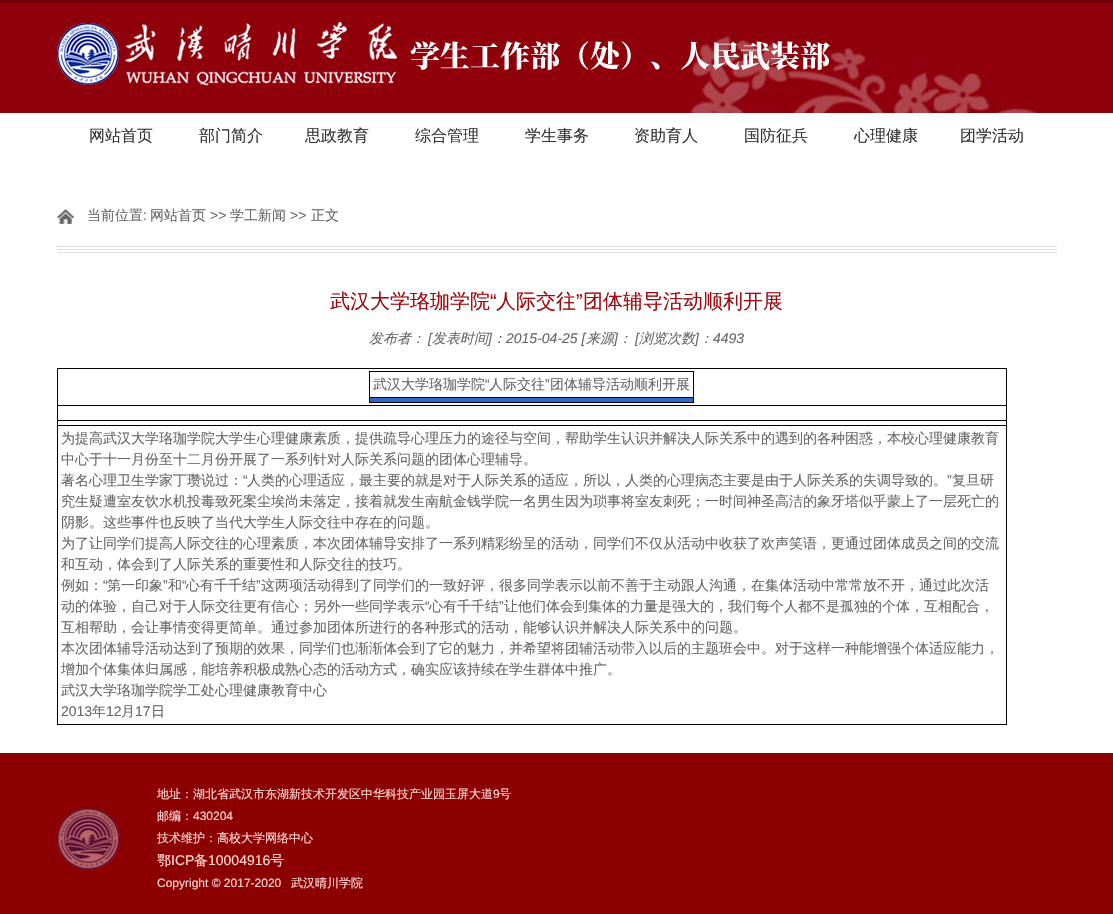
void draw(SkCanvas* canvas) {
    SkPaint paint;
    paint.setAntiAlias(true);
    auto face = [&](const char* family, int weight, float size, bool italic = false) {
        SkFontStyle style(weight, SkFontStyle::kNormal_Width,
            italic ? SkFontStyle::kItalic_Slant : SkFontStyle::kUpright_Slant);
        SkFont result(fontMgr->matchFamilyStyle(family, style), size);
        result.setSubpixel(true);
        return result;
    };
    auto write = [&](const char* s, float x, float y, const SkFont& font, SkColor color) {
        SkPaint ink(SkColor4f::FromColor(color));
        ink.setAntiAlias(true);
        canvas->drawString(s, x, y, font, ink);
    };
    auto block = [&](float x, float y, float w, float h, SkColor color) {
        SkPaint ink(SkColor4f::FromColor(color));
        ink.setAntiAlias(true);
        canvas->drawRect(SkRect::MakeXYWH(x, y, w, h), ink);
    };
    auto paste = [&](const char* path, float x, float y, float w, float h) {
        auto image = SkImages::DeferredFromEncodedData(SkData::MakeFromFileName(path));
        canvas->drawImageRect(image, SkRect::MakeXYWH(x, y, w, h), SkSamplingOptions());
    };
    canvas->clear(SK_ColorWHITE);
    block(0, 0, 1113, 3, SkColorSetRGB(112, 0, 5));
    block(0, 3, 1113, 110, SkColorSetRGB(143, 0, 11));
    paste("pic1.png", 689, 30, 349, 83);
    paste("pic2.png", 57, 22, 773, 64);
    auto kFont1 = face("WenQuanYi Zen Hei", 500, 16);
    write("网站首页", 89, 141, kFont1, SkColorSetRGB(51, 51, 51));
    write("部门简介", 199, 141, kFont1, SkColorSetRGB(51, 51, 51));
    write("思政教育", 305, 141, kFont1, SkColorSetRGB(51, 51, 51));
    write("综合管理", 415, 141, kFont1, SkColorSetRGB(51, 51, 51));
    write("学生事务", 525, 141, kFont1, SkColorSetRGB(51, 51, 51));
    write("资助育人", 634, 141, kFont1, SkColorSetRGB(51, 51, 51));
    write("国防征兵", 744, 141, kFont1, SkColorSetRGB(51, 51, 51));
    write("心理健康", 854, 141, kFont1, SkColorSetRGB(51, 51, 51));
    write("团学活动", 960, 141, kFont1, SkColorSetRGB(51, 51, 51));
    paste("pic3.png", 57, 246, 1000, 7);
    paste("pic4.png", 57, 209, 17, 15);
    auto kFont2 = face("WenQuanYi Zen Hei", 500, 14);
    write("当前位置", 87, 220, kFont2, SkColorSetRGB(102, 102, 102));
    auto kFont3 = face("Liberation Sans", 400, 14);
    write(":", 143, 220, kFont3, SkColorSetRGB(102, 102, 102));
    write("网站首页", 150, 220, kFont2, SkColorSetRGB(102, 102, 102));
    write(">>", 210, 220, kFont3, SkColorSetRGB(102, 102, 102));
    write("学工新闻", 230, 220, kFont2, SkColorSetRGB(102, 102, 102));
    write(">>", 290, 220, kFont3, SkColorSetRGB(102, 102, 102));
    write("正文", 311, 220, kFont2, SkColorSetRGB(102, 102, 102));
    auto kFont4 = face("WenQuanYi Zen Hei", 500, 20);
    write("武汉大学珞珈学院", 330, 308, kFont4, SkColorSetRGB(159, 8, 12));
    auto kFont5 = face("Liberation Sans", 400, 20);
    write("“", 490, 308, kFont5, SkColorSetRGB(159, 8, 12));
    write("人际交往", 496, 308, kFont4, SkColorSetRGB(159, 8, 12));
    write("”", 576, 308, kFont5, SkColorSetRGB(159, 8, 12));
    write("团体辅导活动顺利开展", 583, 308, kFont4, SkColorSetRGB(159, 8, 12));
    auto kFont6 = face("WenQuanYi Zen Hei", 500, 14, true);
    write("发布者：", 369, 343, kFont6, SkColorSetRGB(102, 102, 102));
    auto kFont7 = face("Liberation Sans", 400, 14, true);
    write("[", 428, 343, kFont7, SkColorSetRGB(102, 102, 102));
    write("发表时间", 432, 343, kFont6, SkColorSetRGB(102, 102, 102));
    write("2015-04-25 [", 506, 343, kFont7, SkColorSetRGB(102, 102, 102));
    write("来源", 586, 343, kFont6, SkColorSetRGB(102, 102, 102));
    write("[", 635, 343, kFont7, SkColorSetRGB(102, 102, 102));
    write("浏览次数", 639, 343, kFont6, SkColorSetRGB(102, 102, 102));
    write("]", 488, 343, kFont7, SkColorSetRGB(102, 102, 102));
    write("：", 492, 343, kFont6, SkColorSetRGB(102, 102, 102));
    write("]", 614, 343, kFont7, SkColorSetRGB(102, 102, 102));
    write("：", 618, 343, kFont6, SkColorSetRGB(102, 102, 102));
    write("]", 695, 343, kFont7, SkColorSetRGB(102, 102, 102));
    write("：", 699, 343, kFont6, SkColorSetRGB(102, 102, 102));
    write("4493", 713, 343, kFont7, SkColorSetRGB(102, 102, 102));
    block(57, 368, 950, 1, SK_ColorBLACK);
    block(1006, 368, 1, 357, SK_ColorBLACK);
    block(57, 724, 950, 1, SK_ColorBLACK);
    block(57, 368, 1, 357, SK_ColorBLACK);
    block(369, 371, 325, 1, SK_ColorBLACK);
    block(369, 398, 325, 4, SkColorSetRGB(51, 102, 204));
    block(693, 371, 1, 32, SK_ColorBLACK);
    block(369, 402, 325, 1, SK_ColorBLACK);
    block(369, 371, 1, 32, SK_ColorBLACK);
    write("武汉大学珞珈学院", 373, 389, kFont2, SkColorSetRGB(102, 102, 102));
    write("“", 485, 389, kFont3, SkColorSetRGB(102, 102, 102));
    write("人际交往", 489, 389, kFont2, SkColorSetRGB(102, 102, 102));
    write("”", 545, 389, kFont3, SkColorSetRGB(102, 102, 102));
    write("团体辅导活动顺利开展", 550, 389, kFont2, SkColorSetRGB(102, 102, 102));
    block(369, 397, 325, 1, SK_ColorBLACK);
    block(57, 405, 950, 1, SK_ColorBLACK);
    block(57, 420, 950, 1, SK_ColorBLACK);
    block(57, 425, 950, 1, SK_ColorBLACK);
    write("为提高武汉大学珞珈学院大学生心理健康素质，提供疏导心理压力的途径与空间，帮助学生认识并解决人际关系中的遇到的各种困惑，本校心理健康教育", 61, 443, kFont2, SkColorSetRGB(102, 102, 102));
    write("中心于十一月份至十二月份开展了一系列针对人际关系问题的团体心理辅导。", 61, 464, kFont2, SkColorSetRGB(102, 102, 102));
    write("著名心理卫生学家丁瓒说过：", 61, 485, kFont2, SkColorSetRGB(102, 102, 102));
    write("“", 243, 485, kFont3, SkColorSetRGB(102, 102, 102));
    write("人类的心理适应，最主要的就是对于人际关系的适应，所以，人类的心理病态主要是由于人际关系的失调导致的。", 247, 485, kFont2, SkColorSetRGB(102, 102, 102));
    write("”", 947, 485, kFont3, SkColorSetRGB(102, 102, 102));
    write("复旦研", 952, 485, kFont2, SkColorSetRGB(102, 102, 102));
    write("究生疑遭室友饮水机投毒致死案尘埃尚未落定，接着就发生南航金钱学院一名男生因为琐事将室友刺死；一时间神圣高洁的象牙塔似乎蒙上了一层死亡的", 61, 506, kFont2, SkColorSetRGB(102, 102, 102));
    write("阴影。这些事件也反映了当代大学生人际交往中存在的问题。", 61, 527, kFont2, SkColorSetRGB(102, 102, 102));
    write("为了让同学们提高人际交往的心理素质，本次团体辅导安排了一系列精彩纷呈的活动，同学们不仅从活动中收获了欢声笑语，更通过团体成员之间的交流", 61, 548, kFont2, SkColorSetRGB(102, 102, 102));
    write("和互动，体会到了人际关系的重要性和人际交往的技巧。", 61, 569, kFont2, SkColorSetRGB(102, 102, 102));
    write("例如：", 61, 590, kFont2, SkColorSetRGB(102, 102, 102));
    write("“", 103, 590, kFont3, SkColorSetRGB(102, 102, 102));
    write("第一印象", 107, 590, kFont2, SkColorSetRGB(102, 102, 102));
    write("”", 163, 590, kFont3, SkColorSetRGB(102, 102, 102));
    write("和", 168, 590, kFont2, SkColorSetRGB(102, 102, 102));
    write("“", 182, 590, kFont3, SkColorSetRGB(102, 102, 102));
    write("心有千千结", 186, 590, kFont2, SkColorSetRGB(102, 102, 102));
    write("”", 256, 590, kFont3, SkColorSetRGB(102, 102, 102));
    write("这两项活动得到了同学们的一致好评，很多同学表示以前不善于主动跟人沟通，在集体活动中常常放不开，通过此次活", 261, 590, kFont2, SkColorSetRGB(102, 102, 102));
    write("动的体验，自己对于人际交往更有信心；另外一些同学表示", 61, 611, kFont2, SkColorSetRGB(102, 102, 102));
    write("“", 425, 611, kFont3, SkColorSetRGB(102, 102, 102));
    write("心有千千结", 429, 611, kFont2, SkColorSetRGB(102, 102, 102));
    write("”", 499, 611, kFont3, SkColorSetRGB(102, 102, 102));
    write("让他们体会到集体的力量是强大的，我们每个人都不是孤独的个体，互相配合，", 504, 611, kFont2, SkColorSetRGB(102, 102, 102));
    write("互相帮助，会让事情变得更简单。通过参加团体所进行的各种形式的活动，能够认识并解决人际关系中的问题。", 61, 632, kFont2, SkColorSetRGB(102, 102, 102));
    write("本次团体辅导活动达到了预期的效果，同学们也渐渐体会到了它的魅力，并希望将团辅活动带入以后的主题班会中。对于这样一种能增强个体适应能力，", 61, 653, kFont2, SkColorSetRGB(102, 102, 102));
    write("增加个体集体归属感，能培养积极成熟心态的活动方式，确实应该持续在学生群体中推广。", 61, 674, kFont2, SkColorSetRGB(102, 102, 102));
    write("武汉大学珞珈学院学工处心理健康教育中心", 61, 695, kFont2, SkColorSetRGB(102, 102, 102));
    write("2013", 61, 716, kFont3, SkColorSetRGB(102, 102, 102));
    write("年", 92, 716, kFont2, SkColorSetRGB(102, 102, 102));
    write("12", 106, 716, kFont3, SkColorSetRGB(102, 102, 102));
    write("月", 121, 716, kFont2, SkColorSetRGB(102, 102, 102));
    write("17", 135, 716, kFont3, SkColorSetRGB(102, 102, 102));
    write("日", 151, 716, kFont2, SkColorSetRGB(102, 102, 102));
    block(0, 753, 1113, 161, SkColorSetRGB(140, 0, 0));
    paste("pic5.png", 57, 807, 68, 63);
    auto kFont8 = face("WenQuanYi Zen Hei", 500, 12);
    write("地址：湖北省武汉市东湖新技术开发区中华科技产业园玉屏大道", 157, 798, kFont8, SkColorSetRGB(252, 216, 216));
    auto kFont9 = face("Liberation Sans", 400, 12);
    write("9", 493, 798, kFont9, SkColorSetRGB(252, 216, 216));
    write("号", 499, 798, kFont8, SkColorSetRGB(252, 216, 216));
    write("邮编：", 157, 820, kFont8, SkColorSetRGB(252, 216, 216));
    write("430204", 193, 820, kFont9, SkColorSetRGB(252, 216, 216));
    write("技术维护：高校大学网络中心", 157, 842, kFont8, SkColorSetRGB(252, 216, 216));
    write("鄂", 157, 865, kFont2, SkColorSetRGB(252, 216, 216));
    write("ICP", 171, 865, kFont3, SkColorSetRGB(252, 216, 216));
    write("备", 194, 865, kFont2, SkColorSetRGB(252, 216, 216));
    write("10004916", 208, 865, kFont3, SkColorSetRGB(252, 216, 216));
    write("号", 270, 865, kFont2, SkColorSetRGB(252, 216, 216));
    write("Copyright © 2017-2020", 157, 887, kFont9, SkColorSetRGB(252, 216, 216));
    write("武汉晴川学院", 291, 887, kFont8, SkColorSetRGB(252, 216, 216));
}
